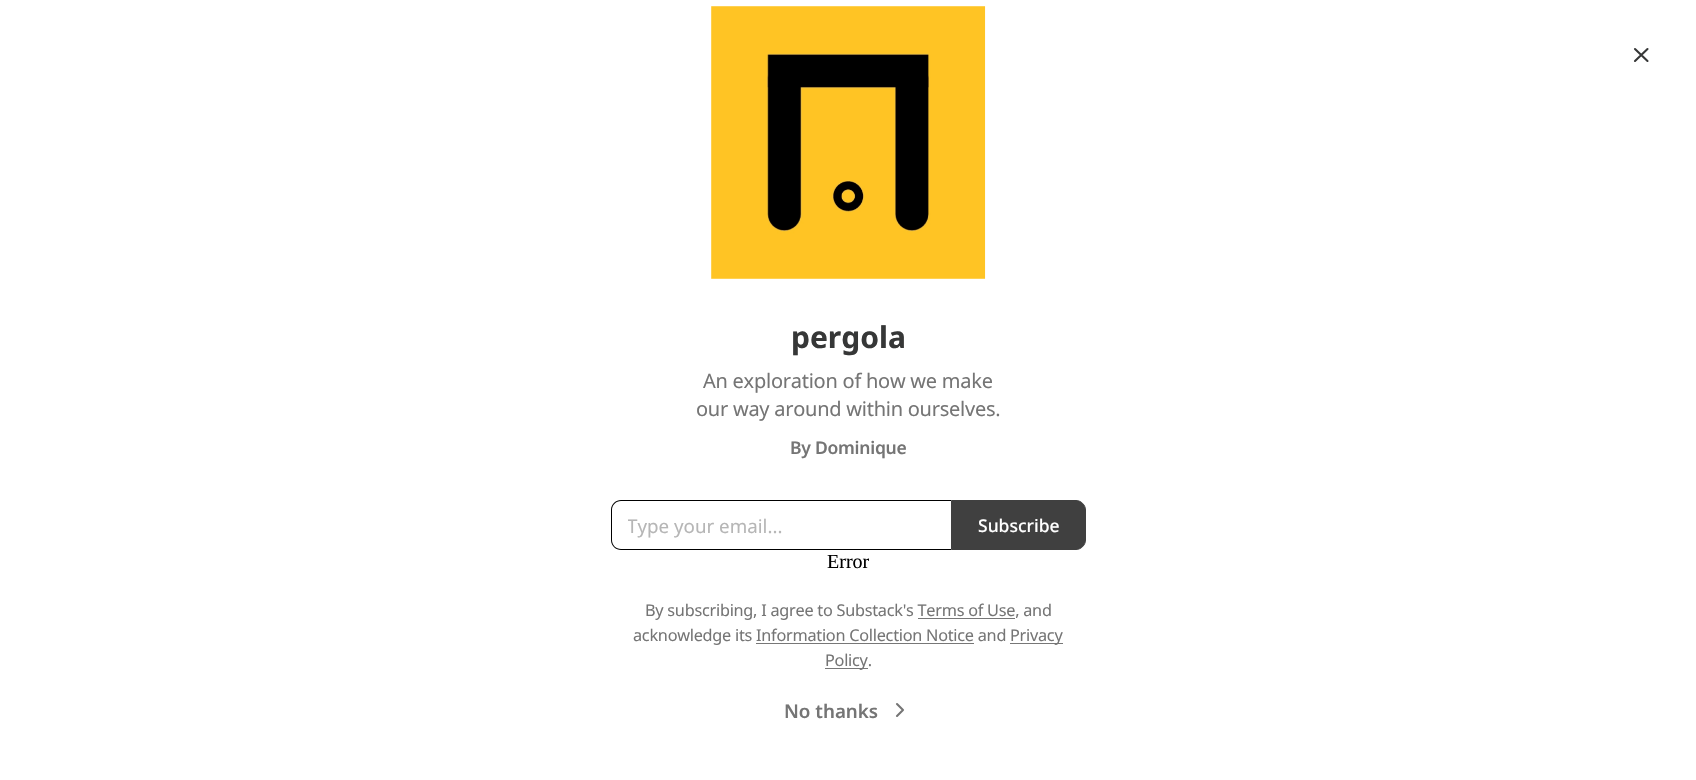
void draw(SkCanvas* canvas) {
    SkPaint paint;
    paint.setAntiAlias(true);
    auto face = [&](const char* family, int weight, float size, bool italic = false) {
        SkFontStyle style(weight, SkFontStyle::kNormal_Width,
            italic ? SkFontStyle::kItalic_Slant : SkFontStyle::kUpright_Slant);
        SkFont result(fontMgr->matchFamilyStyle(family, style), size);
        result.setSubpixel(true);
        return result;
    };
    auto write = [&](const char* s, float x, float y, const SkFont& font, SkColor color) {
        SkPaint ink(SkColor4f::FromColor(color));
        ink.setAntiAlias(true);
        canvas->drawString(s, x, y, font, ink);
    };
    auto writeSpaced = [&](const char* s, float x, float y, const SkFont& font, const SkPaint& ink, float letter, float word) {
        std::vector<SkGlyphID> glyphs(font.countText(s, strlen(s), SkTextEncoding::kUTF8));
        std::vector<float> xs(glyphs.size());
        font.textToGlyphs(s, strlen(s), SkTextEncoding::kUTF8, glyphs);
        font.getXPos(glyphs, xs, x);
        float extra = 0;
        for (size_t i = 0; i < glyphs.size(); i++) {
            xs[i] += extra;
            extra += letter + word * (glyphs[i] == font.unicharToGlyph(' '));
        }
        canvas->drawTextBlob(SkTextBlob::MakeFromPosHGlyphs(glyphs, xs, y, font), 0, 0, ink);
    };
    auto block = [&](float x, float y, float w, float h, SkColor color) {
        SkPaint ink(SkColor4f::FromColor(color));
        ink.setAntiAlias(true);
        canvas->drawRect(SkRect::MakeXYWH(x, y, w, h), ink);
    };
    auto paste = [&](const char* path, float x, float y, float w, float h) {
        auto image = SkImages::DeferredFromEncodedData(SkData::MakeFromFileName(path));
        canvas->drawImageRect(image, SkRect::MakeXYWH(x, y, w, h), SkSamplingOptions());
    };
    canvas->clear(SK_ColorWHITE);
    paste("pic1.png", 711, 6, 275, 273);
    paint.setStyle(SkPaint::kStroke_Style);
    paint.setStrokeWidth(2.1f);
    paint.setStrokeCap(SkPaint::kRound_Cap);
    paint.setStrokeJoin(SkPaint::kRound_Join);
    paint.setColor(SkColorSetRGB(54, 55, 55));
    canvas->drawPath(SkPathBuilder().moveTo(1647.5f, 49).lineTo(1635, 61).moveTo(1635, 49).lineTo(1647.5f, 61).detach(), paint);
    auto kFont1 = face("Noto Sans", 700, 30);
    write("pergola", 791, 348, kFont1, SkColorSetRGB(54, 55, 55));
    auto kFont2 = face("Noto Sans", 400, 20);
    paint.setStyle(SkPaint::kFill_Style);
    paint.setColor(SkColorSetRGB(117, 117, 117));
    writeSpaced("An exploration of how we make", 703, 388, kFont2, paint, -0.25f, 0);
    writeSpaced("our way around within ourselves.", 696, 416, kFont2, paint, -0.25f, 0);
    auto kFont3 = face("Noto Sans", 600, 17.5f);
    writeSpaced("By Dominique", 790, 454, kFont3, paint, -0.25f, 0);
    paint.setColor(SK_ColorBLACK);
    canvas->drawPath(SkPathBuilder(SkPathFillType::kEvenOdd).moveTo(621, 500).lineTo(951, 500).lineTo(951, 550).lineTo(621, 550).cubicTo(616, 550, 611, 546, 611, 540).lineTo(611, 510).cubicTo(611, 504, 616, 500, 621, 500).close().moveTo(621, 501).lineTo(951, 501).lineTo(951, 549).lineTo(621, 549).cubicTo(616, 549, 612, 545, 612, 540).lineTo(612, 510).cubicTo(612, 505, 616, 501, 621, 501).close().detach(), paint);
    canvas->save();
    canvas->clipRect(SkRect::MakeXYWH(628, 513, 308, 25));
    auto kFont4 = face("Noto Sans", 400, 18.75f);
    write("Type your email...", 627, 533, kFont4, SkColorSetRGB(182, 182, 182));
    canvas->restore();
    paint.setColor(SkColorSetRGB(64, 64, 64));
    canvas->drawPath(SkPathBuilder().moveTo(951.5f, 500.5f).lineTo(1076, 500.5f).cubicTo(1081, 500.5f, 1085.5f, 505, 1085.5f, 510).lineTo(1085.5f, 540).cubicTo(1085.5f, 545, 1081, 549.5f, 1076, 549.5f).lineTo(951.5f, 549.5f).close().detach(), paint);
    paint.setStyle(SkPaint::kStroke_Style);
    paint.setStrokeWidth(1);
    paint.setStrokeCap(SkPaint::kButt_Cap);
    paint.setStrokeJoin(SkPaint::kMiter_Join);
    canvas->drawPath(SkPathBuilder().moveTo(951.5f, 500.5f).lineTo(1076, 500.5f).cubicTo(1081, 500.5f, 1085.5f, 505, 1085.5f, 510).lineTo(1085.5f, 540).cubicTo(1085.5f, 545, 1081, 549.5f, 1076, 549.5f).lineTo(951.5f, 549.5f).close().detach(), paint);
    auto kFont5 = face("Noto Sans", 500, 17.5f);
    write("Subscribe", 978, 532, kFont5, SK_ColorWHITE);
    auto kFont6 = face("Liberation Serif", 400, 20);
    write("Error", 827, 568, kFont6, SK_ColorBLACK);
    auto kFont7 = face("Noto Sans", 400, 16.25f);
    paint.setStyle(SkPaint::kFill_Style);
    paint.setColor(SkColorSetRGB(117, 117, 117));
    writeSpaced("By subscribing, I agree to Substack's Terms of Use, and", 645, 616, kFont7, paint, -0.25f, 0);
    block(918, 618, 97, 1, SkColorSetRGB(119, 119, 119));
    writeSpaced("acknowledge its Information Collection Notice and", 633, 641, kFont7, paint, -0.25f, 0);
    block(1010, 643, 53, 1, SkColorSetRGB(119, 119, 119));
    writeSpaced("Privacy", 1010, 641, kFont7, paint, -0.25f, 0);
    block(756, 643, 218, 1, SkColorSetRGB(119, 119, 119));
    block(825, 668, 43, 1, SkColorSetRGB(119, 119, 119));
    writeSpaced("Policy.", 825, 666, kFont7, paint, -0.25f, 0);
    auto kFont8 = face("Noto Sans", 600, 18.75f);
    write("No thanks", 784, 718, kFont8, SkColorSetRGB(117, 117, 117));
    paint.setStyle(SkPaint::kStroke_Style);
    paint.setStrokeWidth(2.1f);
    paint.setStrokeCap(SkPaint::kRound_Cap);
    paint.setStrokeJoin(SkPaint::kRound_Join);
    canvas->drawPath(SkPathBuilder().moveTo(897, 716).lineTo(903, 710).lineTo(897, 704).detach(), paint);
}
